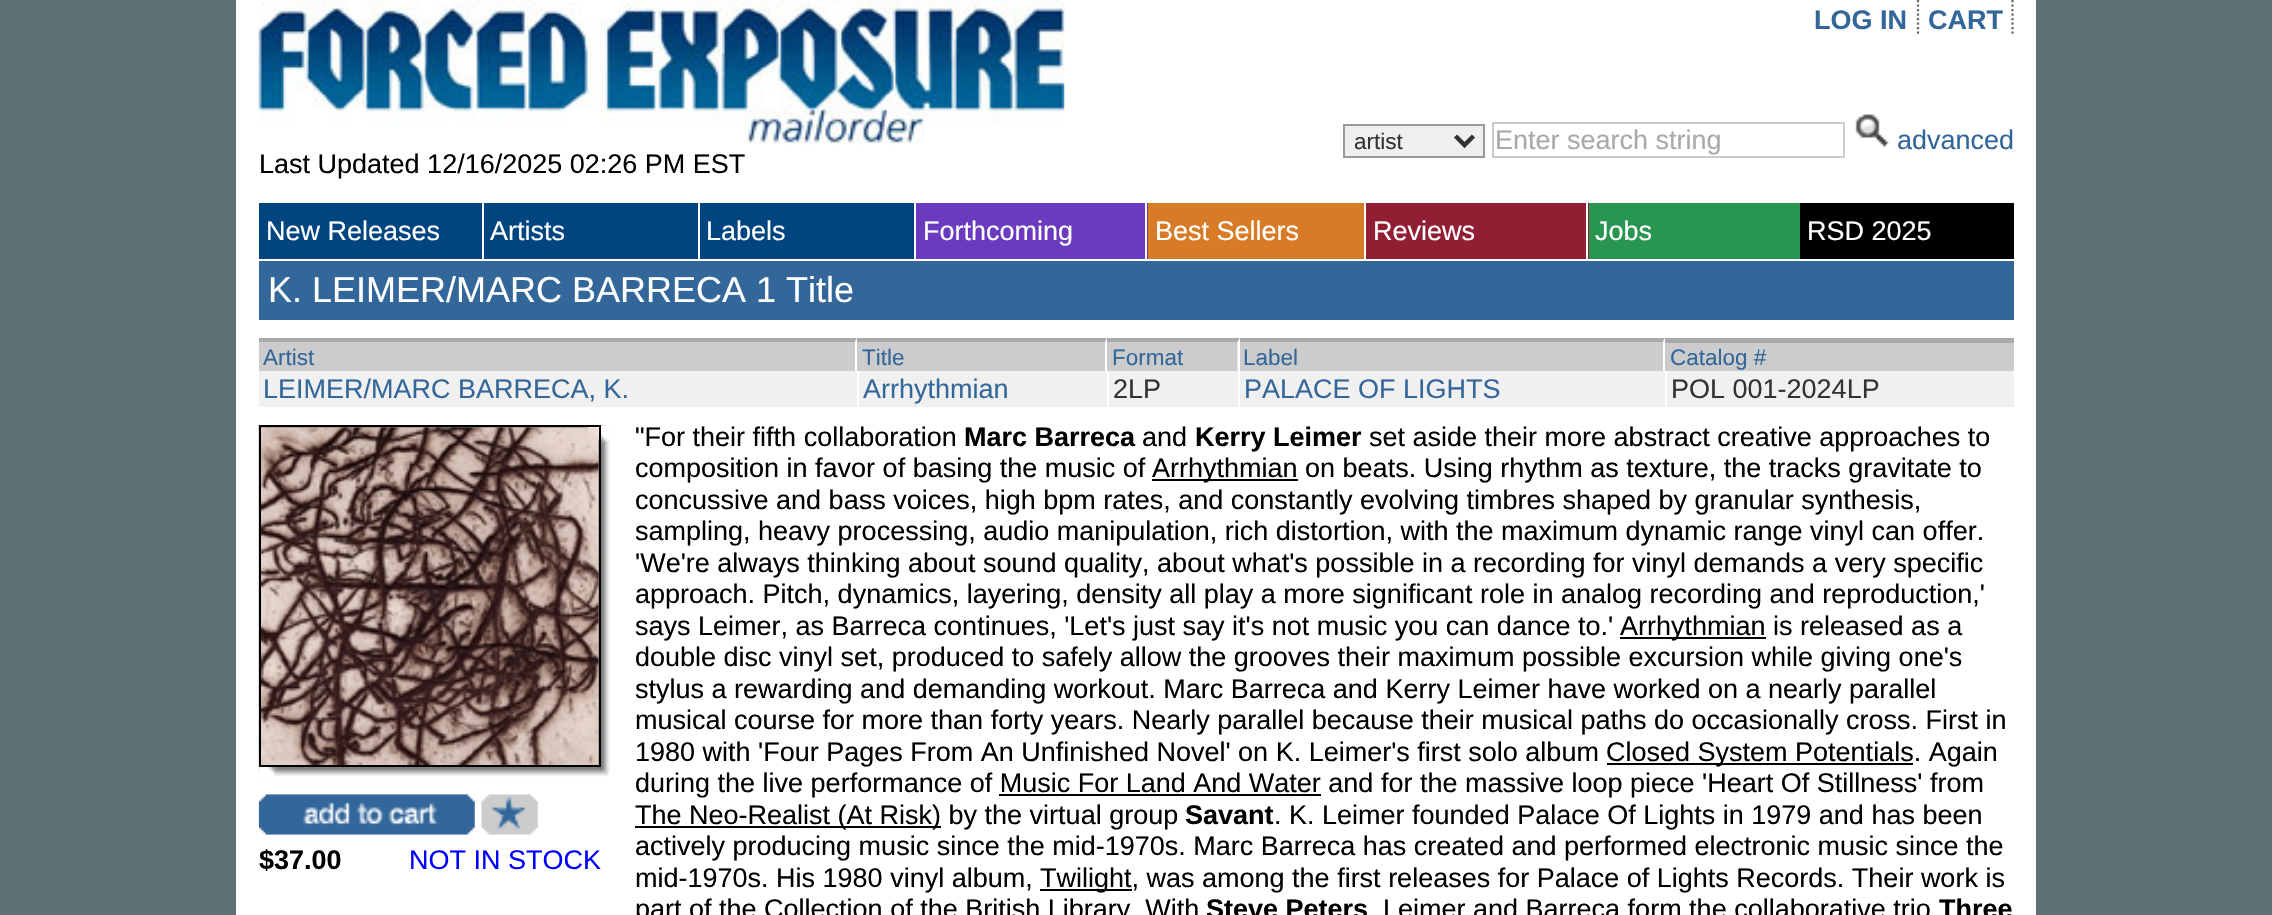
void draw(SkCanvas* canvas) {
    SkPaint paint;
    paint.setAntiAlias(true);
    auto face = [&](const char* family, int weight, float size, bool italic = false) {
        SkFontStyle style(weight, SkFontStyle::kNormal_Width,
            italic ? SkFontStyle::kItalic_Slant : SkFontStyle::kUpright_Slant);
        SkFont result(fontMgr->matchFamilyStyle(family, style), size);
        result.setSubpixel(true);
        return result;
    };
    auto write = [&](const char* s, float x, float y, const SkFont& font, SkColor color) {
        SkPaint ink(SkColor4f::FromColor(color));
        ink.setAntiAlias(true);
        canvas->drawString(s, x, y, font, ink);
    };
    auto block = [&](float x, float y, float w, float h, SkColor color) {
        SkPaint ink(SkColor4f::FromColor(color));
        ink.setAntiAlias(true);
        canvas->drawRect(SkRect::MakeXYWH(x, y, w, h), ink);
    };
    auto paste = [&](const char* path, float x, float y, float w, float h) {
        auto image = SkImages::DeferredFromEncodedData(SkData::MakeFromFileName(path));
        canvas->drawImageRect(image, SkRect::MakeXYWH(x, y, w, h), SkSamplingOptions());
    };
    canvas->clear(SkColorSetRGB(93, 112, 115));
    block(236, 0, 1800, 915, SK_ColorWHITE);
    paint.setStyle(SkPaint::kStroke_Style);
    paint.setStrokeWidth(2.2f);
    paint.setColor(SkColorSetRGB(102, 102, 102));
    paint.setPathEffect(SkDashPathEffect::Make({{2.25f, 2.25f}}, 0));
    canvas->drawPath(SkPathBuilder().moveTo(1918, 0).lineTo(1918, 36).detach(), paint);
    paint.setPathEffect(nullptr);
    auto kFont1 = face("Liberation Sans", 700, 27);
    write("LOG IN", 1814, 29, kFont1, SkColorSetRGB(51, 102, 153));
    paint.setPathEffect(SkDashPathEffect::Make({{2.25f, 2.25f}}, 0));
    canvas->drawPath(SkPathBuilder().moveTo(2012.5f, 0).lineTo(2012.5f, 36).detach(), paint);
    paint.setPathEffect(nullptr);
    write("CART", 1928, 29, kFont1, SkColorSetRGB(51, 102, 153));
    paint.setStyle(SkPaint::kFill_Style);
    paint.setColor(SkColorSetRGB(239, 239, 239));
    canvas->drawRect(SkRect::MakeXYWH(1344, 125, 140, 32), paint);
    paint.setStyle(SkPaint::kStroke_Style);
    paint.setStrokeWidth(2);
    paint.setColor(SkColorSetRGB(153, 153, 153));
    canvas->drawRect(SkRect::MakeXYWH(1344, 125, 140, 32), paint);
    paint.setStrokeWidth(4.5f);
    paint.setColor(SkColorSetRGB(51, 51, 51));
    canvas->drawPath(SkPathBuilder().moveTo(1455.5f, 136).lineTo(1464.5f, 145).lineTo(1473.5f, 136).detach(), paint);
    auto kFont2 = face("Liberation Sans", 400, 22.5f);
    write("artist", 1354, 149, kFont2, SkColorSetRGB(51, 51, 51));
    paint.setStrokeWidth(2);
    paint.setColor(SkColorSetRGB(204, 204, 204));
    canvas->drawRect(SkRect::MakeXYWH(1493, 123, 351, 34), paint);
    auto kFont3 = face("Liberation Sans", 400, 27);
    write("Enter search string", 1495, 149, kFont3, SkColorSetRGB(169, 169, 169));
    paste("pic1.png", 1855, 114, 34, 33);
    write("advanced", 1897, 149, kFont3, SkColorSetRGB(51, 102, 153));
    paste("pic2.png", 258, 0, 807, 145);
    write("Last Updated 12/16/2025 02:26 PM EST", 259, 173, kFont3, SK_ColorBLACK);
    block(259, 203, 223, 56, SkColorSetRGB(0, 69, 128));
    write("New Releases", 266, 240, kFont3, SK_ColorWHITE);
    block(484, 203, 214, 56, SkColorSetRGB(0, 69, 128));
    write("Artists", 490, 240, kFont3, SK_ColorWHITE);
    block(700, 203, 214, 56, SkColorSetRGB(0, 69, 128));
    write("Labels", 706, 240, kFont3, SK_ColorWHITE);
    block(916, 203, 232, 56, SkColorSetRGB(107, 59, 191));
    block(1145, 203, 2, 56, SK_ColorWHITE);
    write("Forthcoming", 923, 240, kFont3, SK_ColorWHITE);
    block(1148, 203, 216, 56, SkColorSetRGB(216, 123, 39));
    write("Best Sellers", 1155, 240, kFont3, SK_ColorWHITE);
    block(1366, 203, 223, 56, SkColorSetRGB(145, 30, 50));
    block(1586, 203, 2, 56, SK_ColorWHITE);
    write("Reviews", 1373, 240, kFont3, SK_ColorWHITE);
    block(1589, 203, 211, 56, SkColorSetRGB(40, 149, 81));
    write("Jobs", 1595, 240, kFont3, SK_ColorWHITE);
    block(1800, 203, 214, 56, SK_ColorBLACK);
    write("RSD 2025", 1807, 240, kFont3, SK_ColorWHITE);
    block(259, 261, 1755, 59, SkColorSetRGB(51, 102, 153));
    auto kFont4 = face("Liberation Sans", 400, 36);
    write("K. LEIMER/MARC BARRECA 1 Title", 268, 302, kFont4, SK_ColorWHITE);
    block(259, 338, 1406, 33, SkColorSetRGB(204, 204, 204));
    paint.setStyle(SkPaint::kFill_Style);
    paint.setColor(SkColorSetRGB(170, 170, 170));
    canvas->drawPath(SkPathBuilder().moveTo(259, 338).lineTo(857, 338).lineTo(855, 342).lineTo(259, 342).close().detach(), paint);
    paint.setColor(SK_ColorWHITE);
    canvas->drawPath(SkPathBuilder().moveTo(857, 337.5f).lineTo(857, 371).lineTo(855, 371).lineTo(855, 342).close().detach(), paint);
    write("Artist", 263, 365, kFont2, SkColorSetRGB(51, 102, 153));
    paint.setColor(SkColorSetRGB(170, 170, 170));
    canvas->drawPath(SkPathBuilder().moveTo(857, 338).lineTo(1107, 338).lineTo(1105, 342).lineTo(857, 342).close().detach(), paint);
    paint.setColor(SK_ColorWHITE);
    canvas->drawPath(SkPathBuilder().moveTo(1107, 337.5f).lineTo(1107, 371).lineTo(1105, 371).lineTo(1105, 342).close().detach(), paint);
    write("Title", 862, 365, kFont2, SkColorSetRGB(51, 102, 153));
    paint.setColor(SkColorSetRGB(170, 170, 170));
    canvas->drawPath(SkPathBuilder().moveTo(1107, 338).lineTo(1240, 338).lineTo(1238, 342).lineTo(1107, 342).close().detach(), paint);
    paint.setColor(SK_ColorWHITE);
    canvas->drawPath(SkPathBuilder().moveTo(1240, 337.5f).lineTo(1240, 371).lineTo(1237.5f, 371).lineTo(1237.5f, 342).close().detach(), paint);
    write("Format", 1112, 365, kFont2, SkColorSetRGB(51, 102, 153));
    paint.setColor(SkColorSetRGB(170, 170, 170));
    canvas->drawPath(SkPathBuilder().moveTo(1240, 338).lineTo(1665, 338).lineTo(1663, 342).lineTo(1240, 342).close().detach(), paint);
    paint.setColor(SK_ColorWHITE);
    canvas->drawPath(SkPathBuilder().moveTo(1665, 337.5f).lineTo(1665, 371).lineTo(1663, 371).lineTo(1663, 342).close().detach(), paint);
    write("Label", 1243, 365, kFont2, SkColorSetRGB(51, 102, 153));
    block(1665, 343, 349, 28, SkColorSetRGB(204, 204, 204));
    block(1665, 338, 349, 5, SkColorSetRGB(170, 170, 170));
    write("Catalog #", 1670, 365, kFont2, SkColorSetRGB(51, 102, 153));
    block(259, 371, 598, 36, SkColorSetRGB(240, 240, 240));
    write("LEIMER/MARC BARRECA, K.", 263, 398, kFont3, SkColorSetRGB(51, 102, 153));
    block(859, 371, 248, 36, SkColorSetRGB(240, 240, 240));
    write("Arrhythmian", 863, 398, kFont3, SkColorSetRGB(51, 102, 153));
    block(1109, 371, 129, 36, SkColorSetRGB(240, 240, 240));
    write("2LP", 1113, 398, kFont3, SkColorSetRGB(51, 51, 51));
    block(1240, 371, 425, 36, SkColorSetRGB(240, 240, 240));
    write("PALACE OF LIGHTS", 1244, 398, kFont3, SkColorSetRGB(51, 102, 153));
    block(1667, 371, 347, 36, SkColorSetRGB(240, 240, 240));
    write("POL 001-2024LP", 1671, 398, kFont3, SkColorSetRGB(51, 51, 51));
    paste("pic3.png", 258, 425, 352, 352);
    paste("pic4.png", 258, 753, 20, 23);
    paste("pic5.png", 587, 425, 23, 19);
    paint.setStyle(SkPaint::kStroke_Style);
    paint.setColor(SK_ColorBLACK);
    canvas->drawRect(SkRect::MakeXYWH(260, 426, 340, 340), paint);
    paste("pic6.png", 261, 427, 338, 338);
    paste("pic7.png", 258, 794, 217, 41);
    paste("pic8.png", 481, 794, 57, 41);
    write("$37.00", 259, 869, kFont1, SK_ColorBLACK);
    write("NOT IN STOCK", 409, 869, kFont3, SkColorSetRGB(0, 0, 255));
    write("\"For their fifth collaboration", 635, 446, kFont3, SK_ColorBLACK);
    write("Marc Barreca", 964, 446, kFont1, SK_ColorBLACK);
    write("and", 1142, 446, kFont3, SK_ColorBLACK);
    write("Kerry Leimer", 1195, 446, kFont1, SK_ColorBLACK);
    write("set aside their more abstract creative approaches to", 1369, 446, kFont3, SK_ColorBLACK);
    write("composition in favor of basing the music of", 635, 477, kFont3, SK_ColorBLACK);
    block(1152, 479, 146, 2, SK_ColorBLACK);
    write("Arrhythmian on beats. Using rhythm as texture, the tracks gravitate to", 1152, 477, kFont3, SK_ColorBLACK);
    write("concussive and bass voices, high bpm rates, and constantly evolving timbres shaped by granular synthesis,", 635, 509, kFont3, SK_ColorBLACK);
    write("sampling, heavy processing, audio manipulation, rich distortion, with the maximum dynamic range vinyl can offer.", 635, 540, kFont3, SK_ColorBLACK);
    write("'We're always thinking about sound quality, about what's possible in a recording for vinyl demands a very specific", 635, 572, kFont3, SK_ColorBLACK);
    write("approach. Pitch, dynamics, layering, density all play a more significant role in analog recording and reproduction,'", 635, 603, kFont3, SK_ColorBLACK);
    write("says Leimer, as Barreca continues, 'Let's just say it's not music you can dance to.'", 635, 635, kFont3, SK_ColorBLACK);
    block(1620, 637, 146, 2, SK_ColorBLACK);
    write("Arrhythmian is released as a", 1620, 635, kFont3, SK_ColorBLACK);
    write("double disc vinyl set, produced to safely allow the grooves their maximum possible excursion while giving one's", 635, 666, kFont3, SK_ColorBLACK);
    write("stylus a rewarding and demanding workout. Marc Barreca and Kerry Leimer have worked on a nearly parallel", 635, 698, kFont3, SK_ColorBLACK);
    write("musical course for more than forty years. Nearly parallel because their musical paths do occasionally cross. First in", 635, 729, kFont3, SK_ColorBLACK);
    write("1980 with 'Four Pages From An Unfinished Novel' on K. Leimer's first solo album", 635, 761, kFont3, SK_ColorBLACK);
    block(1607, 763, 306, 2, SK_ColorBLACK);
    write("Closed System Potentials. Again", 1606, 761, kFont3, SK_ColorBLACK);
    write("during the live performance of Music For Land And Water and for the massive loop piece 'Heart Of Stillness' from", 635, 792, kFont3, SK_ColorBLACK);
    block(999, 794, 322, 2, SK_ColorBLACK);
    block(635, 826, 306, 2, SK_ColorBLACK);
    write("The Neo-Realist (At Risk) by the virtual group", 635, 824, kFont3, SK_ColorBLACK);
    write("Savant", 1185, 824, kFont1, SK_ColorBLACK);
    write(". K. Leimer founded Palace Of Lights in 1979 and has been", 1274, 824, kFont3, SK_ColorBLACK);
    write("actively producing music since the mid-1970s. Marc Barreca has created and performed electronic music since the", 635, 855, kFont3, SK_ColorBLACK);
    write("mid-1970s. His 1980 vinyl album,", 635, 887, kFont3, SK_ColorBLACK);
    block(1040, 889, 92, 2, SK_ColorBLACK);
    write("Twilight, was among the first releases for Palace of Lights Records. Their work is", 1040, 887, kFont3, SK_ColorBLACK);
    write("part of the Collection of the British Library. With", 635, 918, kFont3, SK_ColorBLACK);
    write("Steve Peters", 1206, 918, kFont1, SK_ColorBLACK);
    write("Leimer and Barreca form the collaborative trio", 1383, 918, kFont3, SK_ColorBLACK);
    write("Three", 1939, 918, kFont1, SK_ColorBLACK);
}
